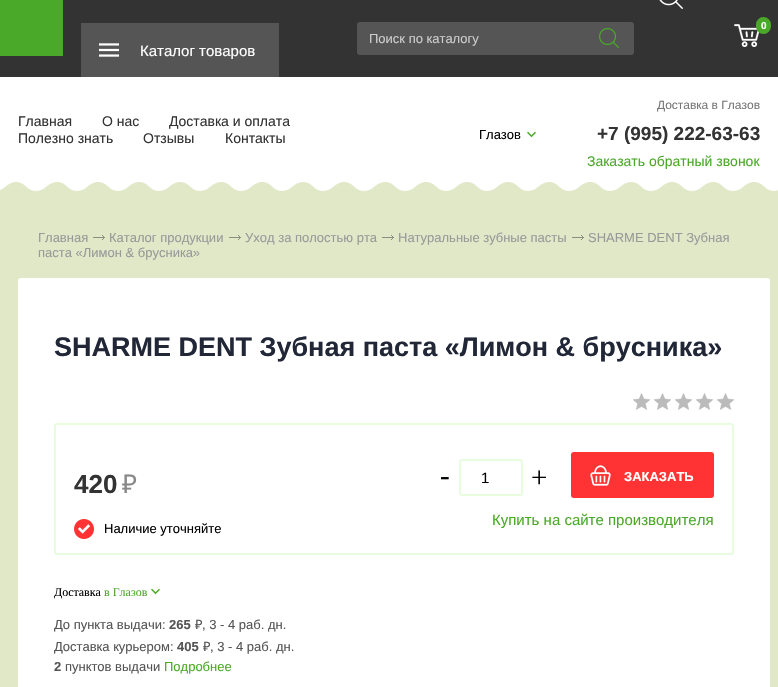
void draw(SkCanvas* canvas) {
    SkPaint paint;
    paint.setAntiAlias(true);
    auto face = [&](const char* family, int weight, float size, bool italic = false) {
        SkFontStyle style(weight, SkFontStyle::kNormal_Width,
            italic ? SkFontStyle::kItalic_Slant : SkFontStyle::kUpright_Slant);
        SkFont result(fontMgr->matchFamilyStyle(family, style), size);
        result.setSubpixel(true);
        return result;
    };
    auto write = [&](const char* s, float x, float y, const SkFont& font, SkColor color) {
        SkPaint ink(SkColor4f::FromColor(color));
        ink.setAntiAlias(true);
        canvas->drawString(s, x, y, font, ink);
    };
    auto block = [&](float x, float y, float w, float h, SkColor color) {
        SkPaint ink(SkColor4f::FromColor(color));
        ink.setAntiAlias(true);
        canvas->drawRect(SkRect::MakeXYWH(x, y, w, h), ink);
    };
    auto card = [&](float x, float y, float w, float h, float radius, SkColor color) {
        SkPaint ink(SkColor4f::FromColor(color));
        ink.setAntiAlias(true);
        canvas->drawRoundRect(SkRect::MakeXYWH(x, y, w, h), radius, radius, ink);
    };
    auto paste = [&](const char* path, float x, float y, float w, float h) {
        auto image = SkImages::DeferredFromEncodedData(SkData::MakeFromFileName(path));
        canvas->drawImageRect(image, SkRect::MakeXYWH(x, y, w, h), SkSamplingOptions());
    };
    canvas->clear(SkColorSetRGB(224, 232, 200));
    block(0, 0, 778, 77, SkColorSetRGB(51, 51, 51));
    paste("pic1.png", 659, 0, 24, 9);
    paste("pic2.png", 734, 24, 26, 23);
    paint.setColor(SkColorSetRGB(75, 169, 41));
    canvas->drawRoundRect(SkRect::MakeXYWH(757, 18, 13, 15), 6.5f, 6.5f, paint);
    paint.setStyle(SkPaint::kStroke_Style);
    paint.setStrokeWidth(2);
    canvas->drawRoundRect(SkRect::MakeXYWH(757, 18, 13, 15), 6.5f, 6.5f, paint);
    auto kFont1 = face("Liberation Sans", 700, 10);
    write("0", 761, 29, kFont1, SK_ColorWHITE);
    card(357, 22, 277, 33, 3, SkColorSetRGB(85, 85, 85));
    auto kFont2 = face("Liberation Sans", 400, 13);
    write("Поиск по каталогу", 369, 43, kFont2, SkColorSetRGB(204, 204, 204));
    paste("pic3.png", 599, 28, 20, 20);
    block(0, 0, 63, 56, SkColorSetRGB(75, 169, 41));
    block(81, 23, 198, 54, SkColorSetRGB(85, 85, 85));
    paste("pic4.png", 99, 43, 20, 14);
    auto kFont3 = face("Liberation Sans", 400, 15);
    write("Каталог товаров", 140, 56, kFont3, SK_ColorWHITE);
    block(0, 77, 778, 104, SK_ColorWHITE);
    auto kFont4 = face("Liberation Sans", 400, 14);
    write("Главная", 18, 126, kFont4, SkColorSetRGB(51, 51, 51));
    write("О нас", 102, 126, kFont4, SkColorSetRGB(51, 51, 51));
    write("Доставка и оплата", 169, 126, kFont4, SkColorSetRGB(51, 51, 51));
    write("Полезно знать", 18, 143, kFont4, SkColorSetRGB(51, 51, 51));
    write("Отзывы", 143, 143, kFont4, SkColorSetRGB(51, 51, 51));
    write("Контакты", 225, 143, kFont4, SkColorSetRGB(51, 51, 51));
    paste("pic5.png", 527, 131, 9, 7);
    write("Глазов", 479, 139, kFont2, SK_ColorBLACK);
    auto kFont5 = face("Liberation Sans", 400, 12);
    write("Доставка в Глазов", 657, 109, kFont5, SkColorSetRGB(119, 119, 119));
    auto kFont6 = face("Liberation Sans", 700, 19);
    write("+7 (995) 222-63-63", 597, 140, kFont6, SkColorSetRGB(51, 51, 51));
    write("Заказать обратный звонок", 587, 166, kFont4, SkColorSetRGB(75, 169, 41));
    paste("pic6.png", 0, 181, 778, 10);
    write("Главная", 38, 242, kFont2, SkColorSetRGB(153, 153, 153));
    paste("pic7.png", 93, 235, 12, 5);
    write("Каталог продукции", 109, 242, kFont2, SkColorSetRGB(153, 153, 153));
    paste("pic7.png", 229, 235, 12, 5);
    write("Уход за полостью рта", 245, 242, kFont2, SkColorSetRGB(153, 153, 153));
    paste("pic7.png", 382, 235, 12, 5);
    write("Натуральные зубные пасты", 398, 242, kFont2, SkColorSetRGB(153, 153, 153));
    paste("pic7.png", 572, 235, 12, 5);
    write("SHARME DENT Зубная", 588, 242, kFont2, SkColorSetRGB(153, 153, 153));
    write("паста «Лимон & брусника»", 38, 257, kFont2, SkColorSetRGB(153, 153, 153));
    card(18, 278, 752, 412, 3, SK_ColorWHITE);
    auto kFont7 = face("Liberation Sans", 700, 27);
    write("SHARME DENT Зубная паста «Лимон & брусника»", 54, 356, kFont7, SkColorSetRGB(33, 39, 55));
    paste("pic8.png", 633, 393, 101, 17);
    paint.setColor(SkColorSetRGB(232, 252, 224));
    canvas->drawRoundRect(SkRect::MakeXYWH(55, 424, 678, 130), 2, 2, paint);
    auto kFont8 = face("Liberation Sans", 700, 26);
    write("420", 74, 493, kFont8, SkColorSetRGB(51, 51, 51));
    auto kFont9 = face("Noto Sans", 400, 26);
    write("₽", 122, 493, kFont9, SkColorSetRGB(136, 136, 136));
    paste("pic9.png", 74, 519, 20, 20);
    write("Наличие уточняйте", 104, 533, kFont2, SK_ColorBLACK);
    auto kFont10 = face("Liberation Serif", 400, 29);
    write("-", 440, 485, kFont10, SK_ColorBLACK);
    canvas->drawRoundRect(SkRect::MakeXYWH(460, 460, 62, 35), 2, 2, paint);
    write("1", 481, 483, kFont3, SK_ColorBLACK);
    write("+", 531, 487, kFont10, SK_ColorBLACK);
    card(571, 452, 143, 46, 3, SkColorSetRGB(255, 51, 51));
    paste("pic10.png", 590, 465, 21, 21);
    auto kFont11 = face("Liberation Sans", 700, 13);
    write("ЗАКАЗАТЬ", 624, 481, kFont11, SK_ColorWHITE);
    write("Купить на сайте производителя", 492, 525, kFont3, SkColorSetRGB(75, 169, 41));
    auto kFont12 = face("Liberation Serif", 400, 12);
    write("Доставка", 54, 596, kFont12, SK_ColorBLACK);
    write("в Глазов", 104, 596, kFont12, SkColorSetRGB(75, 169, 41));
    paste("pic5.png", 151, 588, 9, 7);
    write("До пункта выдачи:", 54, 629, kFont2, SkColorSetRGB(85, 85, 85));
    write("265", 169, 629, kFont11, SkColorSetRGB(85, 85, 85));
    auto kFont13 = face("Noto Sans", 400, 13);
    write("₽", 195, 629, kFont13, SkColorSetRGB(85, 85, 85));
    write(", 3 - 4 раб. дн.", 202, 629, kFont2, SkColorSetRGB(85, 85, 85));
    write("Доставка курьером:", 54, 651, kFont2, SkColorSetRGB(85, 85, 85));
    write("405", 177, 651, kFont11, SkColorSetRGB(85, 85, 85));
    write("₽", 203, 651, kFont13, SkColorSetRGB(85, 85, 85));
    write(", 3 - 4 раб. дн.", 210, 651, kFont2, SkColorSetRGB(85, 85, 85));
    write("2", 54, 671, kFont11, SkColorSetRGB(85, 85, 85));
    write("пунктов выдачи", 65, 671, kFont2, SkColorSetRGB(85, 85, 85));
    write("Подробнее", 164, 671, kFont2, SkColorSetRGB(75, 169, 41));
}
